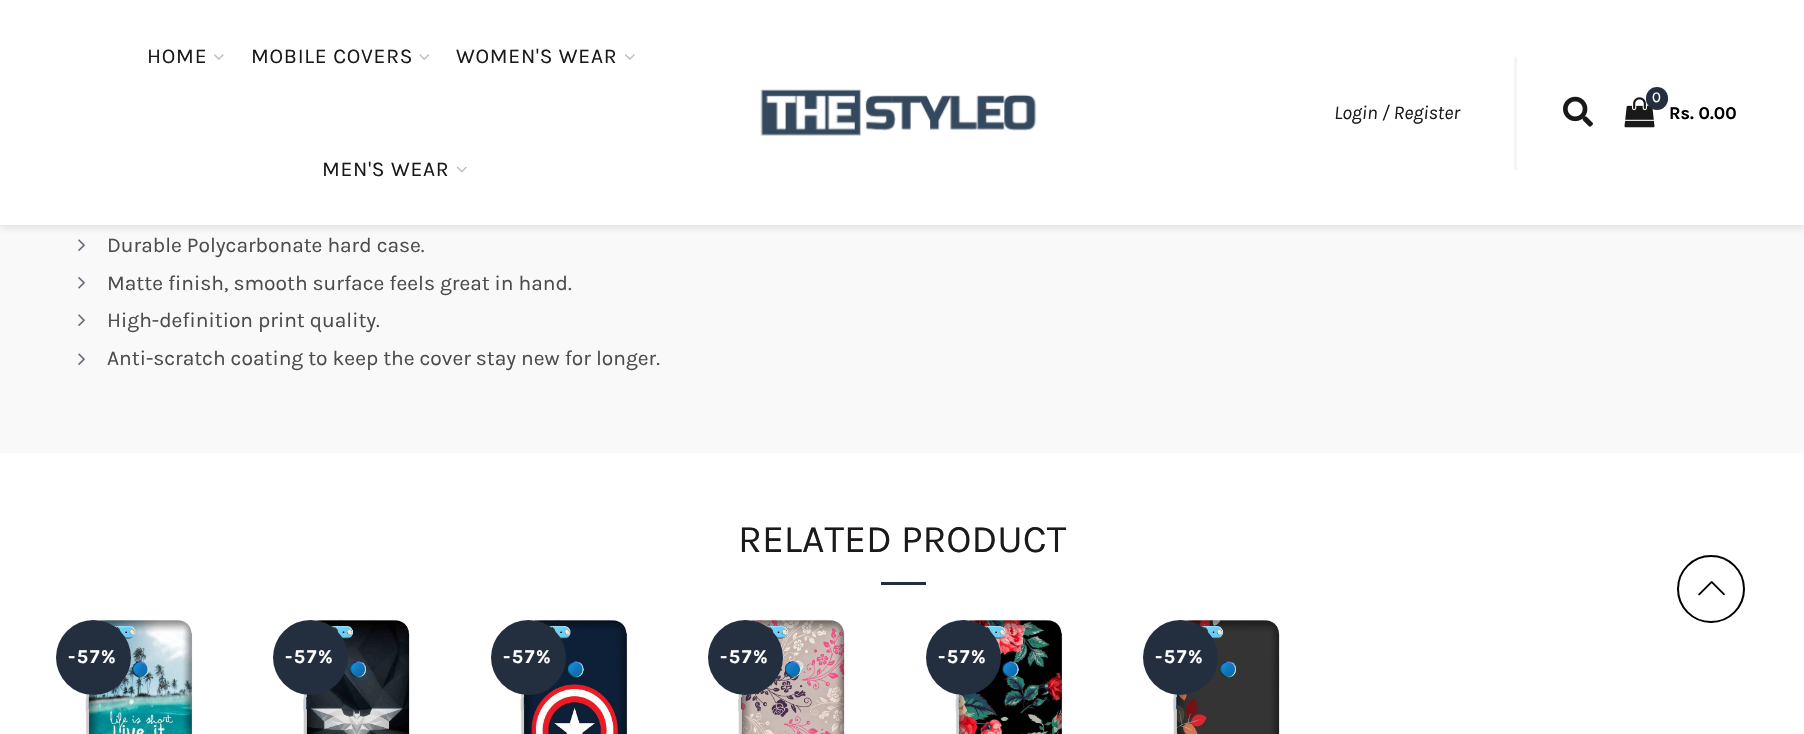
void draw(SkCanvas* canvas) {
    SkPaint paint;
    paint.setAntiAlias(true);
    auto face = [&](const char* family, int weight, float size, bool italic = false) {
        SkFontStyle style(weight, SkFontStyle::kNormal_Width,
            italic ? SkFontStyle::kItalic_Slant : SkFontStyle::kUpright_Slant);
        SkFont result(fontMgr->matchFamilyStyle(family, style), size);
        result.setSubpixel(true);
        return result;
    };
    auto write = [&](const char* s, float x, float y, const SkFont& font, SkColor color) {
        SkPaint ink(SkColor4f::FromColor(color));
        ink.setAntiAlias(true);
        canvas->drawString(s, x, y, font, ink);
    };
    auto writeSpaced = [&](const char* s, float x, float y, const SkFont& font, const SkPaint& ink, float letter, float word) {
        std::vector<SkGlyphID> glyphs(font.countText(s, strlen(s), SkTextEncoding::kUTF8));
        std::vector<float> xs(glyphs.size());
        font.textToGlyphs(s, strlen(s), SkTextEncoding::kUTF8, glyphs);
        font.getXPos(glyphs, xs, x);
        float extra = 0;
        for (size_t i = 0; i < glyphs.size(); i++) {
            xs[i] += extra;
            extra += letter + word * (glyphs[i] == font.unicharToGlyph(' '));
        }
        canvas->drawTextBlob(SkTextBlob::MakeFromPosHGlyphs(glyphs, xs, y, font), 0, 0, ink);
    };
    auto block = [&](float x, float y, float w, float h, SkColor color) {
        SkPaint ink(SkColor4f::FromColor(color));
        ink.setAntiAlias(true);
        canvas->drawRect(SkRect::MakeXYWH(x, y, w, h), ink);
    };
    auto card = [&](float x, float y, float w, float h, float radius, SkColor color) {
        SkPaint ink(SkColor4f::FromColor(color));
        ink.setAntiAlias(true);
        canvas->drawRoundRect(SkRect::MakeXYWH(x, y, w, h), radius, radius, ink);
    };
    auto paste = [&](const char* path, float x, float y, float w, float h) {
        auto image = SkImages::DeferredFromEncodedData(SkData::MakeFromFileName(path));
        canvas->drawImageRect(image, SkRect::MakeXYWH(x, y, w, h), SkSamplingOptions());
    };
    canvas->clear(SK_ColorWHITE);
    block(0, 225, 1804, 228, SkColorSetRGB(249, 249, 249));
    paste("pic7.png", 78, 239, 7, 12);
    paint.setColor(SkColorSetARGB(128, 190, 190, 190));
    paint.setMaskFilter(SkMaskFilter::MakeBlur(kNormal_SkBlurStyle, 4));
    canvas->drawRect(SkRect::MakeXYWH(0, 2, 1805, 225), paint);
    paint.setMaskFilter(nullptr);
    block(0, 0, 1804, 225, SK_ColorWHITE);
    auto kFont1 = face("Karla", 400, 21);
    paint.setColor(SkColorSetRGB(27, 25, 25));
    writeSpaced("HOME", 147, 63, kFont1, paint, 0.75f, 0);
    paste("pic1.png", 214, 54, 10, 6);
    writeSpaced("MOBILE COVERS", 251, 63, kFont1, paint, 0.75f, 0);
    paste("pic2.png", 419, 54, 11, 6);
    writeSpaced("WOMEN'S WEAR", 456, 63, kFont1, paint, 0.75f, 0);
    paste("pic1.png", 625, 54, 10, 6);
    writeSpaced("MEN'S WEAR", 322, 176, kFont1, paint, 0.75f, 0);
    paste("pic3.png", 456, 166, 11, 7);
    paste("pic4.png", 760, 89, 277, 47);
    block(1514, 57, 3, 113, SkColorSetRGB(245, 245, 245));
    auto kFont2 = face("Karla", 400, 19.5f, true);
    write("Login / Register", 1334, 119, kFont2, SkColorSetRGB(27, 25, 25));
    paste("pic5.png", 1563, 96, 30, 31);
    paste("pic6.png", 1624, 97, 31, 31);
    card(1646, 87, 22, 23, 11, SkColorSetRGB(35, 47, 62));
    auto kFont3 = face("Karla", 400, 15);
    write("0", 1652, 102, kFont3, SK_ColorWHITE);
    auto kFont4 = face("Karla", 700, 18);
    write("Rs. 0.00", 1669, 119, kFont4, SK_ColorBLACK);
    write("Durable Polycarbonate hard case.", 107, 252, kFont1, SkColorSetRGB(76, 76, 76));
    paste("pic8.png", 78, 277, 7, 12);
    write("Matte finish, smooth surface feels great in hand.", 107, 290, kFont1, SkColorSetRGB(76, 76, 76));
    paste("pic7.png", 78, 314, 7, 12);
    write("High-definition print quality.", 107, 327, kFont1, SkColorSetRGB(76, 76, 76));
    paste("pic7.png", 78, 353, 7, 12);
    write("Anti-scratch coating to keep the cover stay new for longer.", 107, 365, kFont1, SkColorSetRGB(76, 76, 76));
    auto kFont5 = face("Karla", 400, 39);
    write("RELATED PRODUCT", 738, 552, kFont5, SkColorSetRGB(27, 25, 25));
    block(881, 582, 45, 3, SkColorSetRGB(35, 47, 62));
    paste("pic9.png", 85, 619, 108, 115);
    paint.setColor(SkColorSetRGB(35, 47, 62));
    canvas->drawCircle(93.5f, 657.5f, 37.5f, paint);
    auto kFont6 = face("Karla", 700, 19.5f);
    paint.setColor(SK_ColorWHITE);
    writeSpaced("-57%", 68, 663, kFont6, paint, 1.5f, 0);
    paste("pic10.png", 303, 619, 107, 115);
    paint.setColor(SkColorSetRGB(35, 47, 62));
    canvas->drawCircle(310.5f, 657.5f, 37.5f, paint);
    paint.setColor(SK_ColorWHITE);
    writeSpaced("-57%", 285, 663, kFont6, paint, 1.5f, 0);
    paste("pic11.png", 520, 619, 108, 115);
    paint.setColor(SkColorSetRGB(35, 47, 62));
    canvas->drawCircle(528.5f, 657.5f, 37.5f, paint);
    paint.setColor(SK_ColorWHITE);
    writeSpaced("-57%", 503, 663, kFont6, paint, 1.5f, 0);
    paste("pic12.png", 738, 619, 108, 115);
    paint.setColor(SkColorSetRGB(35, 47, 62));
    canvas->drawCircle(745.5f, 657.5f, 37.5f, paint);
    paint.setColor(SK_ColorWHITE);
    writeSpaced("-57%", 720, 663, kFont6, paint, 1.5f, 0);
    paste("pic13.png", 955, 619, 108, 115);
    paint.setColor(SkColorSetRGB(35, 47, 62));
    canvas->drawCircle(963.5f, 657.5f, 37.5f, paint);
    paint.setColor(SK_ColorWHITE);
    writeSpaced("-57%", 938, 663, kFont6, paint, 1.5f, 0);
    paste("pic14.png", 1173, 619, 108, 115);
    paint.setColor(SkColorSetRGB(35, 47, 62));
    canvas->drawCircle(1180.5f, 657.5f, 37.5f, paint);
    paint.setColor(SK_ColorWHITE);
    writeSpaced("-57%", 1155, 663, kFont6, paint, 1.5f, 0);
    paint.setStyle(SkPaint::kStroke_Style);
    paint.setStrokeWidth(2);
    paint.setColor(SK_ColorBLACK);
    canvas->drawCircle(1711, 589, 33, paint);
    paste("pic15.png", 1698, 581, 27, 15);
}
